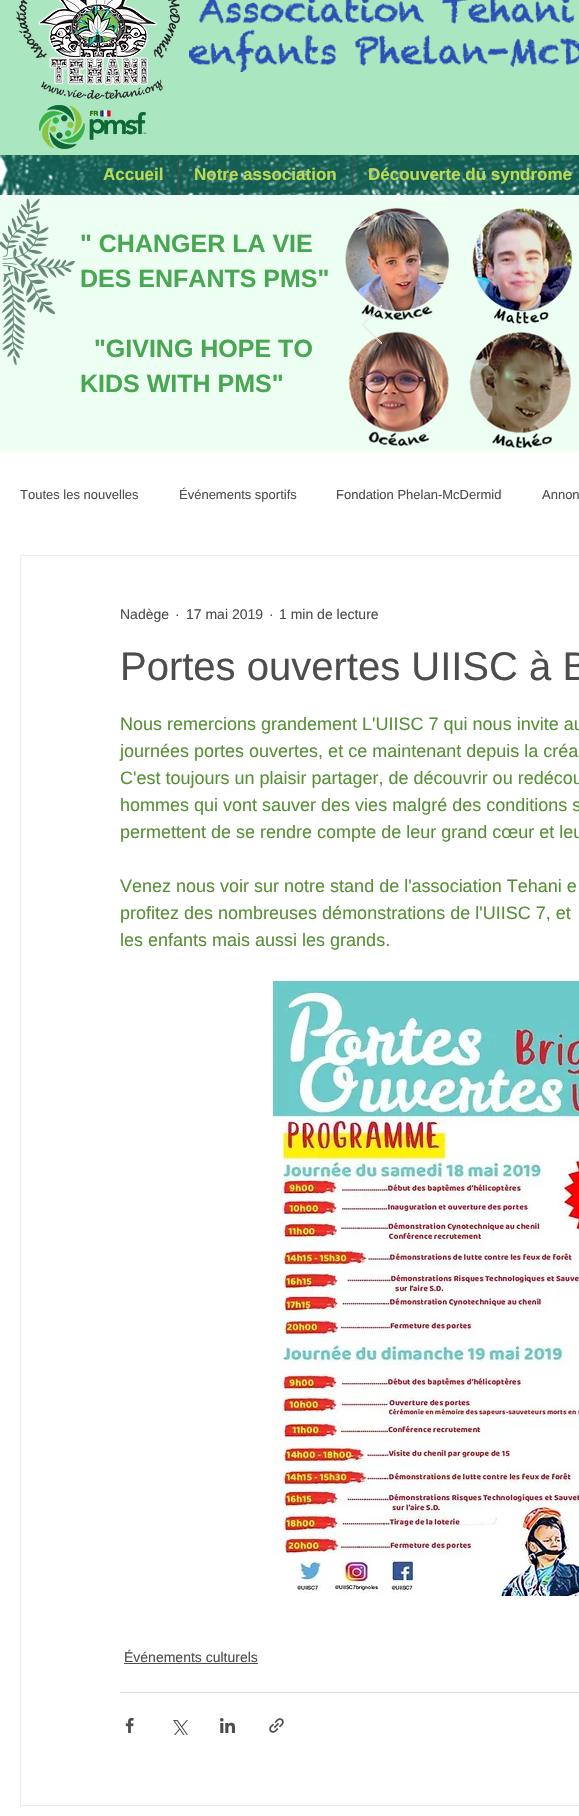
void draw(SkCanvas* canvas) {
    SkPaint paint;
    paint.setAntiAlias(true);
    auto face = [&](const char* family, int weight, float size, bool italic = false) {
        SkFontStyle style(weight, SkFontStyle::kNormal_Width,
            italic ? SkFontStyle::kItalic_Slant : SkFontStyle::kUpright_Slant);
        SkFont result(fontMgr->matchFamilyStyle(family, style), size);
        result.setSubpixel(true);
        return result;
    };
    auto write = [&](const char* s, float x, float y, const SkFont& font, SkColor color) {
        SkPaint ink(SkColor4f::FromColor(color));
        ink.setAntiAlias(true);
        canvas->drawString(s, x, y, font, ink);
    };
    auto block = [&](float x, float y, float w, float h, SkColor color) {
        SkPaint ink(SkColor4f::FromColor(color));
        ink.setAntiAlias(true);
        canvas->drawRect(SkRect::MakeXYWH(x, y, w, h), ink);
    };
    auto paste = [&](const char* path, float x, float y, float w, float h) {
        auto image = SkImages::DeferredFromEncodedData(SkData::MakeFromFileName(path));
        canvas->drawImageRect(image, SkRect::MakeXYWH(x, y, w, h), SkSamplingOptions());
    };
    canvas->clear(SK_ColorWHITE);
    block(0, 0, 579, 158, SkColorSetRGB(170, 231, 192));
    paste("pic1.png", 15, 0, 165, 149);
    paste("pic2.png", 189, 0, 390, 72);
    paste("pic3.png", 38, 99, 109, 50);
    paste("pic4.png", 0, 155, 579, 40);
    auto kFont1 = face("Liberation Sans", 700, 17);
    write("Accueil", 103, 180, kFont1, SkColorSetRGB(186, 218, 85));
    block(178, 156, 1, 38, SkColorSetRGB(77, 77, 77));
    write("Notre association", 194, 180, kFont1, SkColorSetRGB(186, 218, 85));
    block(352, 156, 1, 38, SkColorSetRGB(77, 77, 77));
    write("Découverte du syndrome", 368, 180, kFont1, SkColorSetRGB(186, 218, 85));
    block(0, 196, 579, 255, SkColorSetRGB(236, 255, 242));
    paste("pic5.png", 0, 198, 75, 168);
    auto kFont2 = face("Liberation Sans", 700, 25);
    write("\" CHANGER LA VIE", 80, 252, kFont2, SkColorSetRGB(73, 166, 82));
    write("DES ENFANTS PMS\"", 80, 287, kFont2, SkColorSetRGB(73, 166, 82));
    write("\"GIVING HOPE TO", 94, 357, kFont2, SkColorSetRGB(73, 166, 82));
    write("KIDS WITH PMS\"", 80, 392, kFont2, SkColorSetRGB(73, 166, 82));
    paste("pic6.png", 345, 207, 228, 241);
    canvas->save();
    canvas->clipRect(SkRect::MakeXYWH(362, 305, 20, 39));
    paint.setStyle(SkPaint::kStroke_Style);
    paint.setStrokeWidth(1);
    paint.setColor(SkColorSetRGB(231, 231, 231));
    canvas->drawPath(SkPathBuilder().moveTo(381.5f, 344).lineTo(362, 324.5f).lineTo(381.5f, 305).lineTo(382, 306).lineTo(363, 324.5f).lineTo(382, 343).close().detach(), paint);
    canvas->restore();
    auto kFont3 = face("Liberation Sans", 400, 13);
    write("Toutes les nouvelles", 20, 499, kFont3, SkColorSetRGB(77, 77, 77));
    write("Événements sportifs", 179, 499, kFont3, SkColorSetRGB(77, 77, 77));
    write("Fondation Phelan-McDermid", 336, 499, kFont3, SkColorSetRGB(77, 77, 77));
    write("Annon", 542, 499, kFont3, SkColorSetRGB(77, 77, 77));
    paint.setColor(SkColorSetRGB(237, 237, 237));
    canvas->drawRect(SkRect::MakeXYWH(20.5f, 555.5f, 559, 1250), paint);
    auto kFont4 = face("Liberation Sans", 400, 14);
    write("Nadège", 120, 619, kFont4, SkColorSetRGB(77, 77, 77));
    write("·", 175, 619, kFont4, SkColorSetRGB(77, 77, 77));
    write("17 mai 2019", 186, 619, kFont4, SkColorSetRGB(77, 77, 77));
    write("·", 269, 619, kFont4, SkColorSetRGB(77, 77, 77));
    write("1 min de lecture", 279, 619, kFont4, SkColorSetRGB(77, 77, 77));
    auto kFont5 = face("Liberation Sans", 400, 40);
    write("Portes ouvertes UIISC à B", 120, 680, kFont5, SkColorSetRGB(77, 77, 77));
    auto kFont6 = face("Liberation Sans", 400, 18);
    write("Nous remercions grandement L'UIISC 7 qui nous invite au", 120, 730, kFont6, SkColorSetRGB(88, 144, 55));
    write("journées portes ouvertes, et ce maintenant depuis la créa", 120, 757, kFont6, SkColorSetRGB(88, 144, 55));
    write("C'est toujours un plaisir partager, de découvrir ou redécou", 120, 784, kFont6, SkColorSetRGB(88, 144, 55));
    write("hommes qui vont sauver des vies malgré des conditions s", 120, 811, kFont6, SkColorSetRGB(88, 144, 55));
    write("permettent de se rendre compte de leur grand cœur et leu", 120, 838, kFont6, SkColorSetRGB(88, 144, 55));
    write("Venez nous voir sur notre stand de l'association Tehani e", 120, 892, kFont6, SkColorSetRGB(88, 144, 55));
    write("profitez des nombreuses démonstrations de l'UIISC 7, et", 120, 919, kFont6, SkColorSetRGB(88, 144, 55));
    write("les enfants mais aussi les grands.", 120, 946, kFont6, SkColorSetRGB(88, 144, 55));
    paste("pic7.png", 273, 981, 306, 615);
    write("Événements culturels", 124, 1662, kFont4, SkColorSetRGB(77, 77, 77));
    block(124, 1663, 134, 1, SkColorSetRGB(77, 77, 77));
    block(120, 1692, 459, 1, SkColorSetRGB(219, 219, 219));
    paste("pic8.png", 125, 1718, 9, 15);
    paste("pic9.png", 173, 1720, 15, 15);
    paste("pic10.png", 220, 1718, 15, 15);
    paste("pic11.png", 269, 1718, 15, 15);
}
